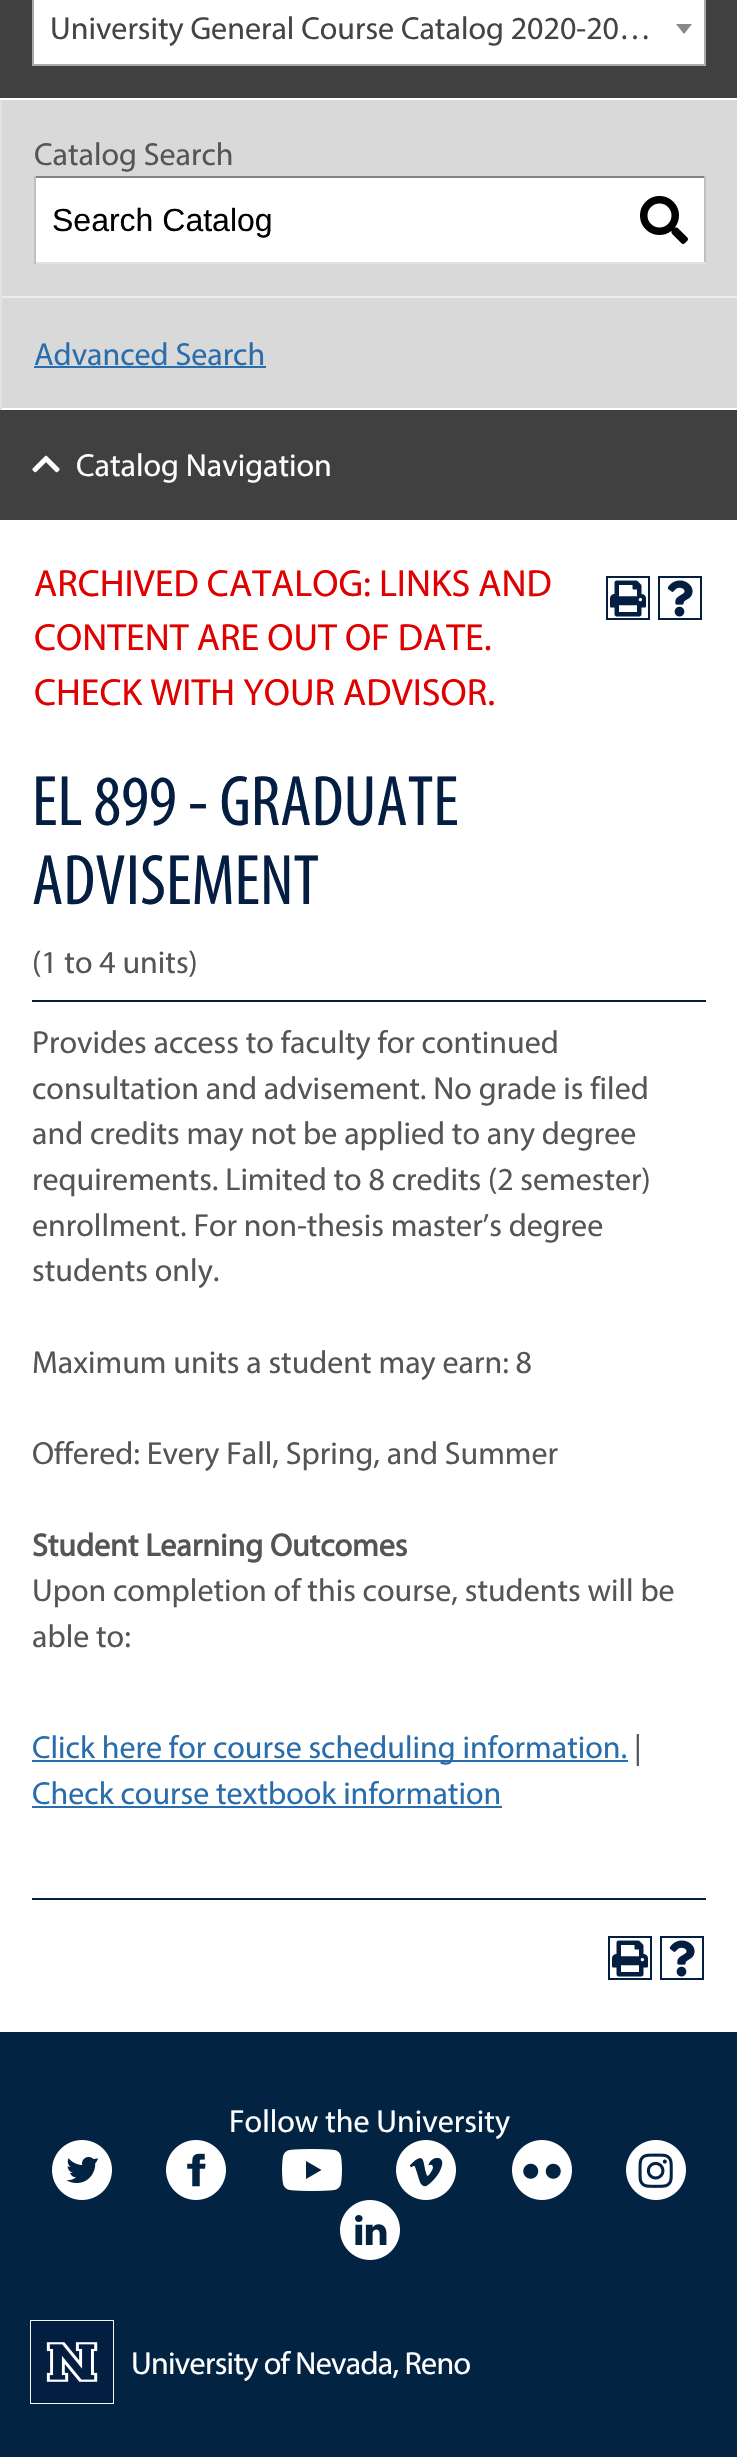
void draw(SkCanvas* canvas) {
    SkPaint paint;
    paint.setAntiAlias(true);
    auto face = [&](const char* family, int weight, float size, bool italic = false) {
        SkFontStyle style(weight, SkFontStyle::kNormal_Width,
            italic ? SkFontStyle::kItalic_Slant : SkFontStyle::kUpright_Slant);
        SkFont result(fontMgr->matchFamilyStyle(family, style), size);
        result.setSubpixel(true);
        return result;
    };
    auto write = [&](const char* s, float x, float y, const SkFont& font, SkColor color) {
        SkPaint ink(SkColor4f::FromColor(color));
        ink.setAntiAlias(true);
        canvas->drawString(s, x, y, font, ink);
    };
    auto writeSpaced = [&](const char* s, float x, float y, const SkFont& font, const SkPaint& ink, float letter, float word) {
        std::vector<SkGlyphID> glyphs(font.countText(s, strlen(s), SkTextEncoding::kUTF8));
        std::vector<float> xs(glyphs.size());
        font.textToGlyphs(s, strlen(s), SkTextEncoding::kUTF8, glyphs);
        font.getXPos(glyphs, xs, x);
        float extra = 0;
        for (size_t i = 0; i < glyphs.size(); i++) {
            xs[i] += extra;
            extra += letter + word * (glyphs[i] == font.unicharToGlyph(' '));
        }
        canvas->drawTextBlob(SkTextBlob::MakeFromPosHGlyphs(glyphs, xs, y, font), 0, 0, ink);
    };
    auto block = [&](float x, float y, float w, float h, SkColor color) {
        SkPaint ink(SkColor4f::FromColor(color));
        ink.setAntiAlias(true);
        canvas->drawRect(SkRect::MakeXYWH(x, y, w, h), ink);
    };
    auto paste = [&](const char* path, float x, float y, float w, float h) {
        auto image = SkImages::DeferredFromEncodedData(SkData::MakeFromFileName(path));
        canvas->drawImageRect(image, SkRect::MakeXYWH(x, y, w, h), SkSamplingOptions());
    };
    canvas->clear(SK_ColorWHITE);
    block(0, 0, 737, 98, SkColorSetRGB(64, 64, 64));
    paint.setColor(SK_ColorWHITE);
    canvas->drawRect(SkRect::MakeXYWH(33, -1, 672, 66), paint);
    paint.setStyle(SkPaint::kStroke_Style);
    paint.setStrokeWidth(2);
    paint.setColor(SkColorSetRGB(170, 170, 170));
    canvas->drawRect(SkRect::MakeXYWH(33, -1, 672, 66), paint);
    auto kFont1 = face("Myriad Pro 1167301", 400, 32);
    write("University General Course Catalog 2020-20…", 50, 39, kFont1, SkColorSetRGB(68, 68, 68));
    paint.setStyle(SkPaint::kFill_Style);
    paint.setColor(SkColorSetRGB(136, 136, 136));
    canvas->drawPath(SkPathBuilder().moveTo(676, 24).lineTo(692, 24).lineTo(684, 34).close().detach(), paint);
    block(2, 100, 735, 308, SkColorSetRGB(217, 217, 217));
    block(0, 100, 2, 310, SkColorSetRGB(227, 227, 227));
    write("Catalog Search", 34, 165, kFont1, SkColorSetRGB(85, 85, 85));
    block(36, 178, 668, 84, SK_ColorWHITE);
    block(34, 176, 672, 2, SkColorSetRGB(132, 132, 132));
    block(704, 176, 2, 88, SkColorSetRGB(193, 193, 193));
    block(34, 262, 672, 2, SkColorSetRGB(225, 225, 225));
    block(34, 176, 2, 88, SkColorSetRGB(193, 193, 193));
    auto kFont2 = face("Liberation Sans", 400, 32);
    write("Search Catalog", 52, 231, kFont2, SK_ColorBLACK);
    paste("pic1.png", 640, 196, 48, 48);
    block(2, 296, 735, 2, SkColorSetRGB(236, 236, 236));
    write("Advanced Search", 34, 365, kFont1, SkColorSetRGB(41, 109, 172));
    block(34, 366, 232, 2, SkColorSetRGB(41, 109, 172));
    block(0, 410, 737, 110, SkColorSetRGB(64, 64, 64));
    paste("pic2.png", 32, 455, 28, 18);
    write("Catalog Navigation", 76, 476, kFont1, SK_ColorWHITE);
    auto kFont3 = face("Myriad Pro 1167301", 400, 38);
    write("ARCHIVED CATALOG: LINKS AND", 34, 596, kFont3, SkColorSetRGB(224, 0, 0));
    paint.setStyle(SkPaint::kStroke_Style);
    paint.setColor(SkColorSetRGB(4, 30, 66));
    canvas->drawRect(SkRect::MakeXYWH(607, 577, 42, 42), paint);
    paste("pic3.png", 610, 580, 36, 37);
    canvas->drawRect(SkRect::MakeXYWH(659, 577, 42, 42), paint);
    paste("pic4.png", 667, 580, 26, 37);
    write("CONTENT ARE OUT OF DATE.", 34, 650, kFont3, SkColorSetRGB(224, 0, 0));
    write("CHECK WITH YOUR ADVISOR.", 34, 705, kFont3, SkColorSetRGB(224, 0, 0));
    auto kFont4 = face("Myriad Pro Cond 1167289", 400, 72);
    write("EL 899 - GRADUATE", 32, 825, kFont4, SkColorSetRGB(4, 30, 66));
    write("ADVISEMENT", 32, 904, kFont4, SkColorSetRGB(4, 30, 66));
    write("(1 to 4 units)", 32, 973, kFont1, SkColorSetRGB(85, 85, 85));
    block(32, 1000, 674, 2, SkColorSetRGB(4, 30, 66));
    write("Provides access to faculty for continued", 32, 1053, kFont1, SkColorSetRGB(85, 85, 85));
    write("consultation and advisement. No grade is filed", 32, 1099, kFont1, SkColorSetRGB(85, 85, 85));
    write("and credits may not be applied to any degree", 32, 1144, kFont1, SkColorSetRGB(85, 85, 85));
    write("requirements. Limited to 8 credits (2 semester)", 32, 1190, kFont1, SkColorSetRGB(85, 85, 85));
    write("enrollment. For non-thesis master’s degree", 32, 1236, kFont1, SkColorSetRGB(85, 85, 85));
    write("students only.", 32, 1281, kFont1, SkColorSetRGB(85, 85, 85));
    write("Maximum units a student may earn: 8", 32, 1373, kFont1, SkColorSetRGB(85, 85, 85));
    write("Offered: Every Fall, Spring, and Summer", 32, 1464, kFont1, SkColorSetRGB(85, 85, 85));
    auto kFont5 = face("Myriad Pro 1167301", 700, 32);
    write("Student Learning Outcomes", 32, 1556, kFont5, SkColorSetRGB(85, 85, 85));
    write("Upon completion of this course, students will be", 32, 1601, kFont1, SkColorSetRGB(85, 85, 85));
    write("able to:", 32, 1647, kFont1, SkColorSetRGB(85, 85, 85));
    block(32, 1760, 596, 2, SkColorSetRGB(41, 109, 172));
    write("Click here for course scheduling information.", 32, 1758, kFont1, SkColorSetRGB(41, 109, 172));
    write("|", 634, 1758, kFont1, SkColorSetRGB(85, 85, 85));
    write("Check course textbook information", 32, 1804, kFont1, SkColorSetRGB(41, 109, 172));
    block(32, 1806, 470, 2, SkColorSetRGB(41, 109, 172));
    block(32, 1898, 674, 2, SkColorSetRGB(4, 30, 66));
    canvas->drawRect(SkRect::MakeXYWH(609, 1937, 42, 42), paint);
    paste("pic3.png", 612, 1940, 36, 37);
    canvas->drawRect(SkRect::MakeXYWH(661, 1937, 42, 42), paint);
    paste("pic4.png", 669, 1940, 26, 37);
    block(0, 2032, 737, 425, SkColorSetRGB(2, 35, 66));
    write("Follow the University", 229, 2132, kFont1, SK_ColorWHITE);
    paste("pic5.png", 52, 2140, 60, 60);
    paste("pic6.png", 166, 2140, 60, 60);
    paste("pic7.png", 282, 2149, 60, 42);
    paste("pic8.png", 396, 2140, 60, 60);
    paste("pic9.png", 512, 2140, 60, 60);
    paste("pic10.png", 626, 2140, 60, 60);
    paste("pic11.png", 340, 2200, 60, 60);
    paste("pic12.png", 30, 2320, 84, 84);
    paint.setStyle(SkPaint::kFill_Style);
    paint.setColor(SK_ColorWHITE);
    writeSpaced("University of Nevada, Reno", 131, 2374, kFont1, paint, -0.7f, 0);
}
